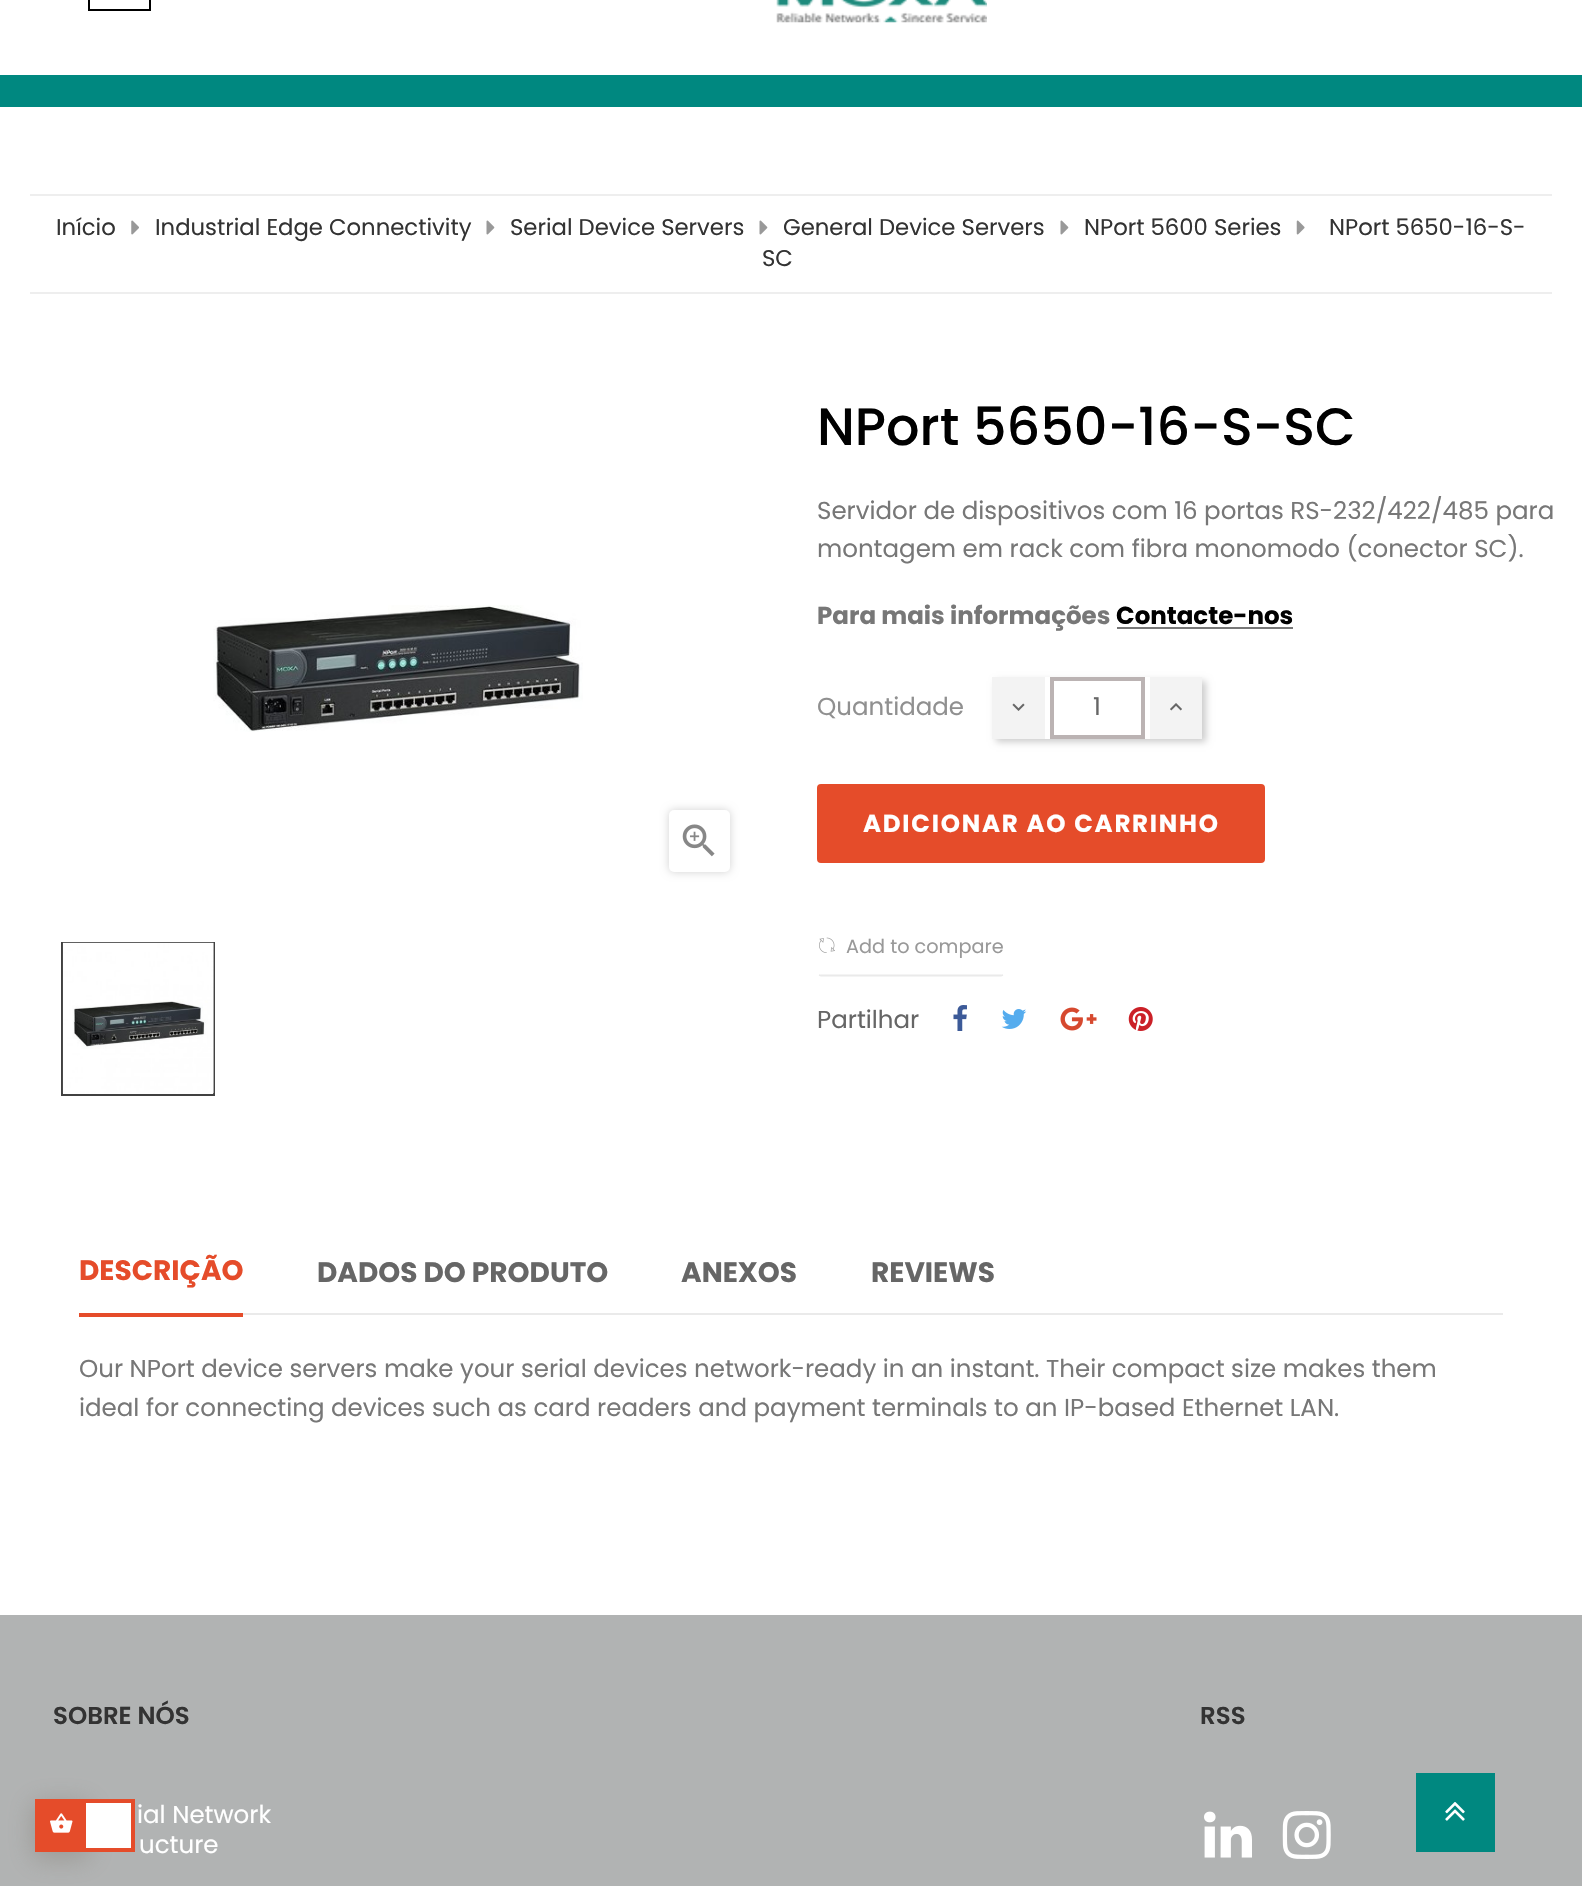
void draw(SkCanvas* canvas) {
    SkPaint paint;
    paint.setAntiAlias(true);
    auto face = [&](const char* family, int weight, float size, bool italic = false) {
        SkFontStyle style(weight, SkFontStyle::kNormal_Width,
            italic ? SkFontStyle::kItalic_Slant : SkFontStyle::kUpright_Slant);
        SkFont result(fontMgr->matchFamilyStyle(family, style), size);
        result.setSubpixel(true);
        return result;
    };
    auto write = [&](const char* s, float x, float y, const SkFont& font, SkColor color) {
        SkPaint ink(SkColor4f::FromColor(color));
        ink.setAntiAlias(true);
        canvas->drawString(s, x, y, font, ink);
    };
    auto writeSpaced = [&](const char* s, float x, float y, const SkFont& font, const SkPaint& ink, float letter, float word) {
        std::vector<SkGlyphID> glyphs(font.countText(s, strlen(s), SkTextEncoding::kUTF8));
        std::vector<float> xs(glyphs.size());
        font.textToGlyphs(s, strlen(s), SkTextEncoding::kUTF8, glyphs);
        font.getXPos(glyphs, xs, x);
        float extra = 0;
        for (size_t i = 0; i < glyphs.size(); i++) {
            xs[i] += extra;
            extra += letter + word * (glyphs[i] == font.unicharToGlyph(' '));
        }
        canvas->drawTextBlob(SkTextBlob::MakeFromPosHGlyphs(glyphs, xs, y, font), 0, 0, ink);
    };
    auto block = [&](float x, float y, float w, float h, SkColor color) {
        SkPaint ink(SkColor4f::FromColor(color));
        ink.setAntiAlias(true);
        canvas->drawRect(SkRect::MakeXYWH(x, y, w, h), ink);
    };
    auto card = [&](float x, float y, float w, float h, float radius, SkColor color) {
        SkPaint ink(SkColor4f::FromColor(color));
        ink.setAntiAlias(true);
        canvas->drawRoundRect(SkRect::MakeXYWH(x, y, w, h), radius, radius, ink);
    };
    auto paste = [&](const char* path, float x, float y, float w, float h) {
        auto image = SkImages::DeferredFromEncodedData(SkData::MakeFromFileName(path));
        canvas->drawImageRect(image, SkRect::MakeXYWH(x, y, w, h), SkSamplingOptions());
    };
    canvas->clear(SK_ColorWHITE);
    block(0, 75, 1582, 32, SkColorSetRGB(0, 136, 128));
    paint.setStyle(SkPaint::kStroke_Style);
    paint.setStrokeWidth(2);
    paint.setColor(SK_ColorBLACK);
    canvas->drawRect(SkRect::MakeXYWH(89, -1, 61, 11), paint);
    paste("pic1.png", 776, 0, 211, 23);
    block(30, 194, 1522, 2, SkColorSetRGB(238, 238, 238));
    block(30, 292, 1522, 2, SkColorSetRGB(238, 238, 238));
    auto kFont1 = face("Poppins", 400, 22.75f);
    write("Início", 56, 235, kFont1, SkColorSetRGB(51, 51, 51));
    paste("pic2.png", 131, 220, 8, 15);
    write("Industrial Edge Connectivity", 155, 235, kFont1, SkColorSetRGB(51, 51, 51));
    paste("pic3.png", 486, 220, 9, 15);
    write("Serial Device Servers", 510, 235, kFont1, SkColorSetRGB(51, 51, 51));
    paste("pic3.png", 759, 220, 9, 15);
    write("General Device Servers", 783, 235, kFont1, SkColorSetRGB(51, 51, 51));
    paste("pic3.png", 1060, 220, 9, 15);
    write("NPort 5600 Series", 1084, 235, kFont1, SkColorSetRGB(51, 51, 51));
    paste("pic4.png", 1296, 220, 9, 15);
    write("NPort 5650-16-S-", 1329, 235, kFont1, SkColorSetRGB(51, 51, 51));
    write("SC", 762, 266, kFont1, SkColorSetRGB(51, 51, 51));
    paste("pic5.png", 213, 605, 370, 127);
    paint.setStyle(SkPaint::kFill_Style);
    paint.setColor(SkColorSetARGB(46, 0, 0, 0));
    paint.setMaskFilter(SkMaskFilter::MakeBlur(kNormal_SkBlurStyle, 4.5f));
    canvas->drawRoundRect(SkRect::MakeXYWH(669, 810, 61, 62), 5, 5, paint);
    paint.setMaskFilter(nullptr);
    card(669, 810, 61, 62, 5, SK_ColorWHITE);
    paste("pic6.png", 682, 824, 33, 33);
    paint.setStyle(SkPaint::kStroke_Style);
    paint.setColor(SkColorSetRGB(65, 65, 65));
    canvas->drawRect(SkRect::MakeXYWH(62, 943, 152, 152), paint);
    paste("pic7.png", 62, 942, 152, 152);
    auto kFont2 = face("Poppins", 500, 52.5f);
    write("NPort 5650-16-S-SC", 817, 445, kFont2, SK_ColorBLACK);
    auto kFont3 = face("Poppins", 400, 24.5f);
    write("Servidor de dispositivos com 16 portas RS-232/422/485 para", 817, 519, kFont3, SkColorSetRGB(119, 119, 119));
    write("montagem em rack com fibra monomodo (conector SC).", 817, 557, kFont3, SkColorSetRGB(119, 119, 119));
    auto kFont4 = face("Poppins", 700, 24.5f);
    write("Para mais informações", 817, 624, kFont4, SkColorSetRGB(119, 119, 119));
    write("Contacte-nos", 1116, 624, kFont4, SK_ColorBLACK);
    block(1117, 627, 176, 2, SkColorSetRGB(119, 119, 119));
    write("Quantidade", 817, 715, kFont3, SkColorSetRGB(144, 144, 144));
    canvas->save();
    canvas->clipPath(SkPathBuilder(SkPathFillType::kEvenOdd).moveTo(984, 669).lineTo(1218, 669).lineTo(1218, 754).lineTo(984, 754).close().moveTo(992, 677).lineTo(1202, 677).lineTo(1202, 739).lineTo(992, 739).close().detach(), true);
    paint.setStyle(SkPaint::kFill_Style);
    paint.setColor(SkColorSetARGB(51, 0, 0, 0));
    paint.setMaskFilter(SkMaskFilter::MakeBlur(kNormal_SkBlurStyle, 3.5f));
    canvas->drawRect(SkRect::MakeXYWH(996, 681, 210, 61), paint);
    paint.setMaskFilter(nullptr);
    canvas->restore();
    block(992, 677, 53, 62, SkColorSetRGB(243, 243, 243));
    paste("pic8.png", 1012, 703, 13, 8);
    block(1150, 677, 52, 62, SkColorSetRGB(243, 243, 243));
    paste("pic9.png", 1170, 703, 12, 8);
    paint.setStyle(SkPaint::kStroke_Style);
    paint.setStrokeWidth(4);
    paint.setColor(SkColorSetRGB(187, 179, 179));
    canvas->drawRect(SkRect::MakeXYWH(1052, 679, 91, 58), paint);
    write("1", 1093, 715, kFont3, SkColorSetRGB(102, 102, 102));
    paint.setStyle(SkPaint::kFill_Style);
    paint.setColor(SkColorSetRGB(229, 76, 42));
    canvas->drawRoundRect(SkRect::MakeXYWH(818, 785, 446, 77), 3, 3, paint);
    paint.setStyle(SkPaint::kStroke_Style);
    paint.setStrokeWidth(2);
    canvas->drawRoundRect(SkRect::MakeXYWH(818, 785, 446, 77), 3, 3, paint);
    paint.setStyle(SkPaint::kFill_Style);
    paint.setColor(SK_ColorWHITE);
    writeSpaced("ADICIONAR AO CARRINHO", 863, 832, kFont4, paint, 1.75f, 0);
    paint.setStyle(SkPaint::kStroke_Style);
    paint.setStrokeWidth(1.8f);
    paint.setColor(SkColorSetRGB(234, 234, 234));
    canvas->drawPath(SkPathBuilder().moveTo(1003, 975).lineTo(1001, 975.5f).lineTo(821, 975.5f).lineTo(819, 975).detach(), paint);
    paste("pic10.png", 819, 937, 16, 16);
    auto kFont5 = face("Poppins", 400, 19.25f);
    write("Add to compare", 846, 953, kFont5, SkColorSetRGB(153, 153, 153));
    write("Partilhar", 817, 1028, kFont3, SkColorSetRGB(102, 102, 102));
    paste("pic11.png", 953, 1005, 14, 26);
    paste("pic12.png", 1001, 1009, 26, 20);
    paste("pic13.png", 1060, 1007, 37, 24);
    paste("pic14.png", 1128, 1007, 25, 24);
    block(243, 1313, 1260, 2, SkColorSetRGB(234, 234, 234));
    block(79, 1313, 164, 4, SkColorSetRGB(229, 76, 42));
    auto kFont6 = face("Poppins", 700, 28);
    write("DESCRIÇÃO", 79, 1280, kFont6, SkColorSetRGB(229, 76, 42));
    write("DADOS DO PRODUTO", 317, 1282, kFont6, SkColorSetRGB(102, 102, 102));
    write("ANEXOS", 681, 1282, kFont6, SkColorSetRGB(102, 102, 102));
    write("REVIEWS", 871, 1282, kFont6, SkColorSetRGB(102, 102, 102));
    write("Our NPort device servers make your serial devices network-ready in an instant. Their compact size makes them", 79, 1377, kFont3, SkColorSetRGB(119, 119, 119));
    write("ideal for connecting devices such as card readers and payment terminals to an IP-based Ethernet LAN.", 79, 1416, kFont3, SkColorSetRGB(119, 119, 119));
    block(0, 1615, 1582, 271, SkColorSetRGB(177, 179, 179));
    auto kFont7 = face("Poppins", 600, 24.5f);
    write("SOBRE NÓS", 53, 1724, kFont7, SkColorSetRGB(51, 51, 51));
    write("ial Network", 137, 1823, kFont3, SK_ColorWHITE);
    write("ucture", 139, 1853, kFont3, SK_ColorWHITE);
    write("RSS", 1200, 1724, kFont7, SkColorSetRGB(51, 51, 51));
    paste("pic15.png", 1204, 1811, 48, 47);
    paste("pic16.png", 1282, 1811, 49, 48);
    block(1416, 1773, 79, 79, SkColorSetRGB(0, 136, 128));
    paste("pic17.png", 1445, 1802, 20, 19);
    paint.setStyle(SkPaint::kFill_Style);
    paint.setColor(SkColorSetARGB(158, 142, 137, 130));
    paint.setMaskFilter(SkMaskFilter::MakeBlur(kNormal_SkBlurStyle, 13));
    canvas->drawRect(SkRect::MakeXYWH(33, 1803, 56, 56), paint);
    paint.setMaskFilter(nullptr);
    block(35, 1799, 47, 53, SkColorSetRGB(229, 76, 42));
    paste("pic18.png", 50, 1813, 23, 20);
    paint.setColor(SK_ColorWHITE);
    canvas->drawRect(SkRect::MakeXYWH(84, 1801, 49, 49), paint);
    paint.setStyle(SkPaint::kStroke_Style);
    paint.setStrokeWidth(4);
    paint.setColor(SkColorSetRGB(229, 76, 42));
    canvas->drawRect(SkRect::MakeXYWH(84, 1801, 49, 49), paint);
}
